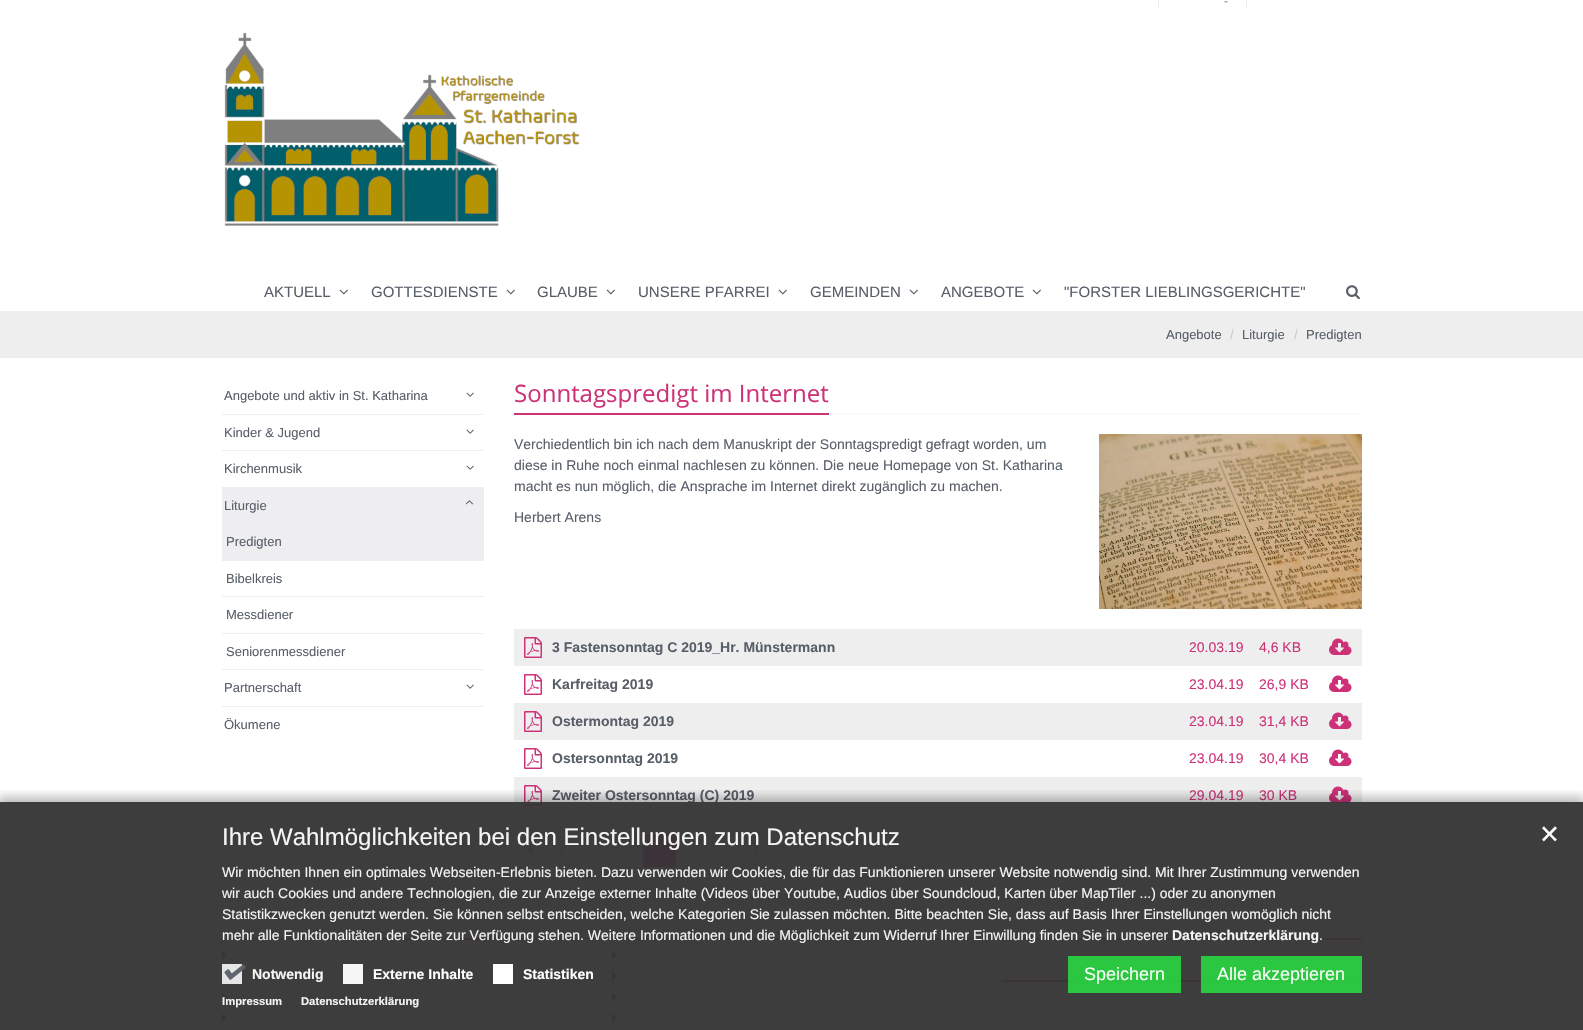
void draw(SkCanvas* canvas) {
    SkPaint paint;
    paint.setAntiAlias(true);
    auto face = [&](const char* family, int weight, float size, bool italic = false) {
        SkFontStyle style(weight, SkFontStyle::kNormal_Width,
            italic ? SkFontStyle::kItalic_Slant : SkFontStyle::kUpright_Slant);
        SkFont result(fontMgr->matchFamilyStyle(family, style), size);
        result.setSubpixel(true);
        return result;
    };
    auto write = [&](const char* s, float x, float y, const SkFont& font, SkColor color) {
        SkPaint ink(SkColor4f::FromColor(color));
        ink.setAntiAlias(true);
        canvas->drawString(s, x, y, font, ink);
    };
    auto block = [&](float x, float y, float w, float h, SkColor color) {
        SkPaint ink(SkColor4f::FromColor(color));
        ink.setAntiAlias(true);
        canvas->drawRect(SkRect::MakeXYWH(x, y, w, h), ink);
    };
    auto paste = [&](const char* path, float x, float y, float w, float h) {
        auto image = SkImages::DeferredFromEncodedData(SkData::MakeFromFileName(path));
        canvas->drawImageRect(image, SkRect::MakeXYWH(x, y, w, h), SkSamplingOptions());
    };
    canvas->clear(SK_ColorWHITE);
    auto kFont1 = face("Liberation Sans", 400, 12);
    write("-", 1224, 5, kFont1, SkColorSetRGB(137, 137, 137));
    block(1158, 0, 1, 8, SkColorSetRGB(238, 238, 238));
    block(1246, 0, 1, 8, SkColorSetRGB(238, 238, 238));
    paste("pic1.png", 224, 32, 356, 194);
    auto kFont2 = face("Liberation Sans", 400, 15);
    write("AKTUELL", 264, 297, kFont2, SkColorSetRGB(88, 95, 105));
    paste("pic2.png", 339, 289, 9, 6);
    write("GOTTESDIENSTE", 371, 297, kFont2, SkColorSetRGB(88, 95, 105));
    paste("pic2.png", 506, 289, 9, 6);
    write("GLAUBE", 537, 297, kFont2, SkColorSetRGB(88, 95, 105));
    paste("pic2.png", 606, 289, 9, 6);
    write("UNSERE PFARREI", 638, 297, kFont2, SkColorSetRGB(88, 95, 105));
    paste("pic2.png", 778, 289, 9, 6);
    write("GEMEINDEN", 810, 297, kFont2, SkColorSetRGB(88, 95, 105));
    paste("pic2.png", 909, 289, 9, 6);
    write("ANGEBOTE", 941, 297, kFont2, SkColorSetRGB(88, 95, 105));
    paste("pic2.png", 1032, 289, 9, 6);
    write("\"FORSTER LIEBLINGSGERICHTE\"", 1064, 297, kFont2, SkColorSetRGB(88, 95, 105));
    paste("pic3.png", 1346, 285, 14, 15);
    block(0, 311, 1583, 47, SkColorSetRGB(238, 238, 238));
    auto kFont3 = face("Liberation Sans", 400, 13);
    write("Angebote", 1166, 339, kFont3, SkColorSetRGB(88, 95, 105));
    write("/", 1230, 339, kFont3, SkColorSetRGB(204, 204, 204));
    write("Liturgie", 1242, 339, kFont3, SkColorSetRGB(88, 95, 105));
    write("/", 1294, 339, kFont3, SkColorSetRGB(204, 204, 204));
    write("Predigten", 1306, 339, kFont3, SkColorSetRGB(88, 95, 105));
    write("Angebote und aktiv in St. Katharina", 224, 400, kFont3, SkColorSetRGB(88, 95, 105));
    paste("pic4.png", 466, 392, 8, 5);
    block(222, 414, 262, 1, SkColorSetRGB(238, 238, 238));
    write("Kinder & Jugend", 224, 437, kFont3, SkColorSetRGB(88, 95, 105));
    paste("pic4.png", 466, 429, 8, 5);
    block(222, 450, 262, 1, SkColorSetRGB(238, 238, 238));
    write("Kirchenmusik", 224, 473, kFont3, SkColorSetRGB(88, 95, 105));
    paste("pic4.png", 466, 465, 8, 5);
    block(222, 488, 262, 72, SkColorSetRGB(238, 238, 240));
    block(222, 487, 262, 1, SkColorSetRGB(238, 238, 238));
    write("Liturgie", 224, 510, kFont3, SkColorSetRGB(88, 95, 105));
    paste("pic5.png", 465, 500, 8, 5);
    write("Predigten", 226, 546, kFont3, SkColorSetRGB(88, 95, 105));
    block(222, 560, 262, 1, SkColorSetRGB(238, 238, 238));
    write("Bibelkreis", 226, 583, kFont3, SkColorSetRGB(88, 95, 105));
    block(222, 596, 262, 1, SkColorSetRGB(238, 238, 238));
    write("Messdiener", 226, 619, kFont3, SkColorSetRGB(88, 95, 105));
    block(222, 633, 262, 1, SkColorSetRGB(238, 238, 238));
    write("Seniorenmessdiener", 226, 656, kFont3, SkColorSetRGB(88, 95, 105));
    block(222, 669, 262, 1, SkColorSetRGB(238, 238, 238));
    write("Partnerschaft", 224, 692, kFont3, SkColorSetRGB(88, 95, 105));
    paste("pic4.png", 466, 684, 8, 5);
    block(222, 706, 262, 1, SkColorSetRGB(238, 238, 238));
    write("Ökumene", 224, 729, kFont3, SkColorSetRGB(88, 95, 105));
    paint.setStyle(SkPaint::kStroke_Style);
    paint.setStrokeWidth(1);
    paint.setColor(SkColorSetRGB(238, 238, 238));
    paint.setPathEffect(SkDashPathEffect::Make({{1, 1}}, 0));
    canvas->drawPath(SkPathBuilder().moveTo(514, 413.5f).lineTo(1362, 413.5f).detach(), paint);
    paint.setPathEffect(nullptr);
    block(514, 413, 315, 2, SkColorSetRGB(205, 50, 120));
    auto kFont4 = face("Open Sans", 400, 24);
    write("Sonntagspredigt im Internet", 514, 402, kFont4, SkColorSetRGB(205, 50, 120));
    auto kFont5 = face("Liberation Sans", 400, 14);
    write("Verchiedentlich bin ich nach dem Manuskript der Sonntagspredigt gefragt worden, um", 514, 449, kFont5, SkColorSetRGB(88, 95, 105));
    write("diese in Ruhe noch einmal nachlesen zu können. Die neue Homepage von St. Katharina", 514, 470, kFont5, SkColorSetRGB(88, 95, 105));
    write("macht es nun möglich, die Ansprache im Internet direkt zugänglich zu machen.", 514, 491, kFont5, SkColorSetRGB(88, 95, 105));
    write("Herbert Arens", 514, 522, kFont5, SkColorSetRGB(88, 95, 105));
    paste("pic6.png", 1099, 434, 263, 175);
    block(514, 629, 848, 37, SkColorSetRGB(238, 238, 238));
    paste("pic7.png", 524, 637, 18, 21);
    auto kFont6 = face("Liberation Sans", 700, 14);
    write("3 Fastensonntag C 2019_Hr. Münstermann", 552, 652, kFont6, SkColorSetRGB(88, 95, 105));
    write("20.03.19", 1189, 652, kFont5, SkColorSetRGB(205, 50, 120));
    write("4,6 KB", 1259, 652, kFont5, SkColorSetRGB(205, 50, 120));
    paste("pic8.png", 1329, 638, 23, 17);
    paste("pic9.png", 524, 674, 18, 21);
    write("Karfreitag 2019", 552, 689, kFont6, SkColorSetRGB(88, 95, 105));
    write("23.04.19", 1189, 689, kFont5, SkColorSetRGB(205, 50, 120));
    write("26,9 KB", 1259, 689, kFont5, SkColorSetRGB(205, 50, 120));
    paste("pic10.png", 1329, 675, 23, 17);
    block(514, 703, 848, 37, SkColorSetRGB(238, 238, 238));
    paste("pic7.png", 524, 711, 18, 21);
    write("Ostermontag 2019", 552, 726, kFont6, SkColorSetRGB(88, 95, 105));
    write("23.04.19", 1189, 726, kFont5, SkColorSetRGB(205, 50, 120));
    write("31,4 KB", 1259, 726, kFont5, SkColorSetRGB(205, 50, 120));
    paste("pic8.png", 1329, 712, 23, 17);
    paste("pic9.png", 524, 748, 18, 21);
    write("Ostersonntag 2019", 552, 763, kFont6, SkColorSetRGB(88, 95, 105));
    write("23.04.19", 1189, 763, kFont5, SkColorSetRGB(205, 50, 120));
    write("30,4 KB", 1259, 763, kFont5, SkColorSetRGB(205, 50, 120));
    paste("pic10.png", 1329, 749, 23, 17);
    block(514, 777, 848, 37, SkColorSetRGB(238, 238, 238));
    paste("pic7.png", 524, 785, 18, 21);
    write("Zweiter Ostersonntag (C) 2019", 552, 800, kFont6, SkColorSetRGB(88, 95, 105));
    write("29.04.19", 1189, 800, kFont5, SkColorSetRGB(205, 50, 120));
    write("30 KB", 1259, 800, kFont5, SkColorSetRGB(205, 50, 120));
    paste("pic8.png", 1329, 786, 23, 17);
    canvas->drawRect(SkRect::MakeXYWH(514.5f, 834.5f, 33, 32), paint);
    paste("pic11.png", 527, 846, 8, 9);
    canvas->drawRect(SkRect::MakeXYWH(547.5f, 834.5f, 30, 32), paint);
    paste("pic12.png", 560, 846, 5, 9);
    canvas->drawRect(SkRect::MakeXYWH(577.5f, 834.5f, 33, 32), paint);
    canvas->drawRect(SkRect::MakeXYWH(610.5f, 834.5f, 33, 32), paint);
    canvas->drawRect(SkRect::MakeXYWH(675.5f, 834.5f, 33, 32), paint);
    block(643, 834, 33, 33, SkColorSetRGB(205, 50, 120));
    canvas->drawRect(SkRect::MakeXYWH(708.5f, 834.5f, 33, 32), paint);
    canvas->drawRect(SkRect::MakeXYWH(741.5f, 834.5f, 30, 32), paint);
    paste("pic13.png", 754, 846, 5, 9);
    block(0, 888, 1583, 142, SkColorSetRGB(238, 238, 240));
    block(222, 938, 360, 2, SkColorSetRGB(205, 50, 120));
    paste("pic14.png", 222, 951, 5, 8);
    paste("pic14.png", 222, 972, 5, 8);
    paste("pic14.png", 222, 993, 5, 8);
    paste("pic14.png", 222, 1014, 5, 8);
    block(612, 938, 360, 2, SkColorSetRGB(205, 50, 120));
    paste("pic14.png", 612, 951, 5, 8);
    paste("pic14.png", 612, 972, 5, 8);
    paste("pic14.png", 612, 993, 5, 8);
    paste("pic14.png", 612, 1014, 5, 8);
    block(1002, 938, 360, 2, SkColorSetRGB(205, 50, 120));
    block(1002, 980, 360, 2, SkColorSetRGB(205, 50, 120));
    canvas->save();
    canvas->clipRect(SkRect::MakeXYWH(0, 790, 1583, 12));
    paint.setStyle(SkPaint::kFill_Style);
    paint.setColor(SkColorSetARGB(71, 0, 0, 0));
    paint.setMaskFilter(SkMaskFilter::MakeBlur(kNormal_SkBlurStyle, 5));
    canvas->drawRect(SkRect::MakeXYWH(-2, 797, 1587, 232), paint);
    paint.setMaskFilter(nullptr);
    canvas->restore();
    block(0, 802, 1583, 228, SkColorSetARGB(242, 51, 51, 51));
    auto kFont7 = face("Liberation Sans", 400, 24);
    write("Ihre Wahlmöglichkeiten bei den Einstellungen zum Datenschutz", 222, 845, kFont7, SkColorSetRGB(245, 245, 245));
    auto kFont8 = face("DejaVu Sans", 400, 25);
    write("✕", 1539, 843, kFont8, SkColorSetRGB(254, 254, 254));
    write("Wir möchten Ihnen ein optimales Webseiten-Erlebnis bieten. Dazu verwenden wir Cookies, die für das Funktionieren unserer Website notwendig sind. Mit Ihrer Zustimmung verwenden", 222, 877, kFont5, SkColorSetRGB(245, 245, 245));
    write("wir auch Cookies und andere Technologien, die zur Anzeige externer Inhalte (Videos über Youtube, Audios über Soundcloud, Karten über MapTiler ...) oder zu anonymen", 222, 898, kFont5, SkColorSetRGB(245, 245, 245));
    write("Statistikzwecken genutzt werden. Sie können selbst entscheiden, welche Kategorien Sie zulassen möchten. Bitte beachten Sie, dass auf Basis Ihrer Einstellungen womöglich nicht", 222, 919, kFont5, SkColorSetRGB(245, 245, 245));
    write("mehr alle Funktionalitäten der Seite zur Verfügung stehen. Weitere Informationen und die Möglichkeit zum Widerruf Ihrer Einwillung finden Sie in unserer", 222, 940, kFont5, SkColorSetRGB(245, 245, 245));
    write("Datenschutzerklärung", 1172, 940, kFont6, SkColorSetRGB(245, 245, 245));
    write(".", 1319, 940, kFont5, SkColorSetRGB(253, 245, 248));
    block(222, 964, 20, 20, SkColorSetARGB(242, 238, 238, 238));
    paste("pic15.png", 224, 964, 22, 16);
    write("Notwendig", 252, 979, kFont6, SkColorSetRGB(245, 245, 245));
    block(343, 964, 20, 20, SkColorSetARGB(242, 255, 255, 255));
    write("Externe Inhalte", 373, 979, kFont6, SkColorSetRGB(254, 254, 254));
    block(493, 964, 20, 20, SkColorSetRGB(254, 254, 254));
    write("Statistiken", 523, 979, kFont6, SkColorSetRGB(254, 254, 254));
    block(1068, 956, 113, 37, SkColorSetARGB(242, 41, 206, 63));
    auto kFont9 = face("Liberation Sans", 400, 18);
    write("Speichern", 1084, 980, kFont9, SkColorSetRGB(244, 252, 245));
    block(1201, 956, 161, 37, SkColorSetARGB(242, 41, 206, 63));
    write("Alle akzeptieren", 1217, 980, kFont9, SkColorSetRGB(244, 252, 245));
    auto kFont10 = face("Liberation Sans", 700, 11.25f);
    write("Impressum", 222, 1005, kFont10, SkColorSetRGB(245, 245, 245));
    write("Datenschutzerklärung", 301, 1005, kFont10, SkColorSetRGB(245, 245, 245));
}
